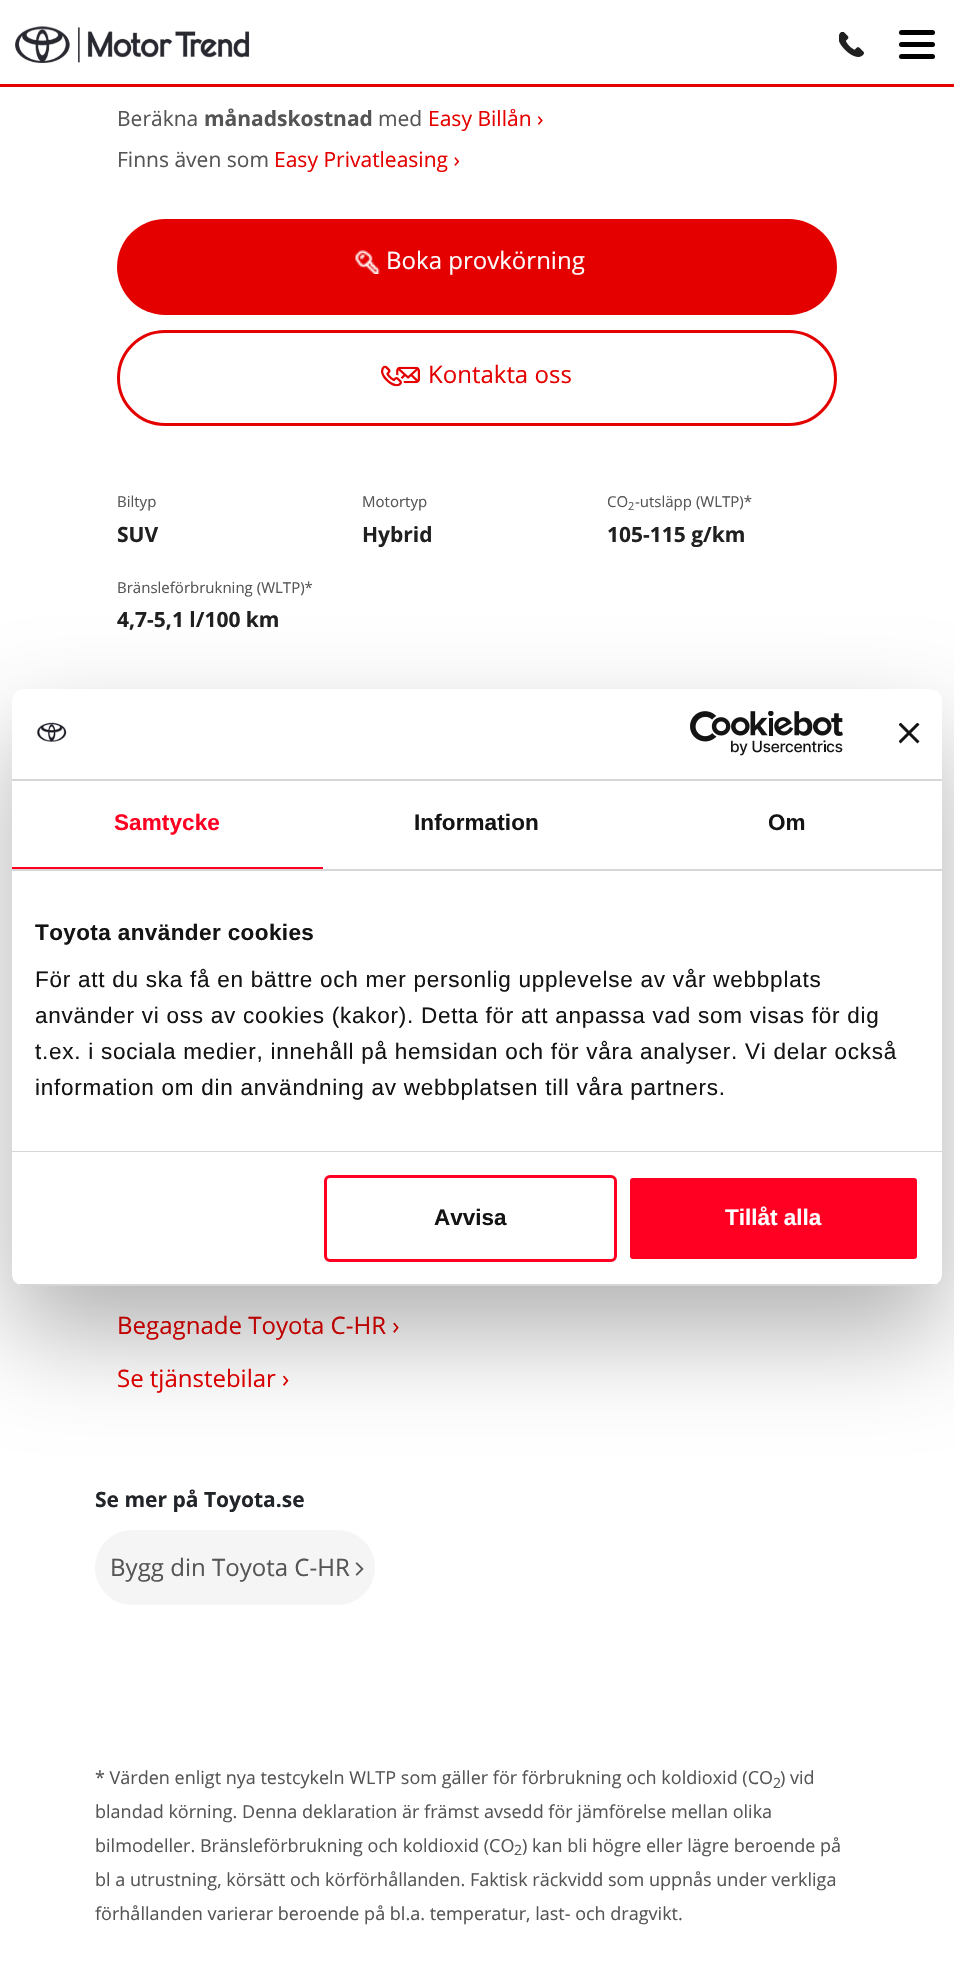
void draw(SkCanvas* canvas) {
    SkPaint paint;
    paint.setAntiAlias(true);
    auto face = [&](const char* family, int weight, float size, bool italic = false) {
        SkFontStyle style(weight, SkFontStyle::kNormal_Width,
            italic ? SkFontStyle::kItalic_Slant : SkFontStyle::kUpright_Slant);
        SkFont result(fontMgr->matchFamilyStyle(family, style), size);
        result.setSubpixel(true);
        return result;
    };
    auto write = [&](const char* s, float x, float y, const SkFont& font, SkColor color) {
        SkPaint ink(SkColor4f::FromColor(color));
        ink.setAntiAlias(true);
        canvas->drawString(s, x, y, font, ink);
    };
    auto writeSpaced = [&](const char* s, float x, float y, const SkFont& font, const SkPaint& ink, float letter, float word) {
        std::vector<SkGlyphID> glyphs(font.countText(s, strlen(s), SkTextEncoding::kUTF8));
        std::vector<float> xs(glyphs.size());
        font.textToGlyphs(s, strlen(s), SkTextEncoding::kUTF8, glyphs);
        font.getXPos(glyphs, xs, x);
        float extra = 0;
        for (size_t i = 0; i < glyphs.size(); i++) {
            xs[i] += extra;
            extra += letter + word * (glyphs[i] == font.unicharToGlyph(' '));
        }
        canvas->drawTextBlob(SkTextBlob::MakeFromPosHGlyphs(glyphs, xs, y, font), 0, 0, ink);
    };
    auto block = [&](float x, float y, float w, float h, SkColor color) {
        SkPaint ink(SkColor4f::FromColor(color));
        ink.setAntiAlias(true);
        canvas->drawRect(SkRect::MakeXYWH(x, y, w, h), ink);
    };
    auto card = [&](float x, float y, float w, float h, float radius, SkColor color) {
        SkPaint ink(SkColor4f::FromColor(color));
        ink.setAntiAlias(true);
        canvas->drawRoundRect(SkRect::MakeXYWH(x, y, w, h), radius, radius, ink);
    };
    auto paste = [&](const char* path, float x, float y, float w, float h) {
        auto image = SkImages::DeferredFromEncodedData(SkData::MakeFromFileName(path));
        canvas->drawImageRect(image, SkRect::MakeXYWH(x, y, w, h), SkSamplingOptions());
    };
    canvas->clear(SK_ColorWHITE);
    block(0, 84, 954, 3, SkColorSetRGB(229, 0, 0));
    paste("pic1.png", 15, 26, 235, 37);
    paste("pic2.png", 839, 32, 25, 25);
    card(899, 30, 36, 5, 2.5f, SK_ColorBLACK);
    card(899, 42, 36, 5, 2.5f, SK_ColorBLACK);
    card(899, 54, 36, 5, 2.5f, SK_ColorBLACK);
    auto kFont1 = face("Open Sans", 400, 21);
    write("Beräkna", 117, 126, kFont1, SkColorSetRGB(85, 85, 85));
    auto kFont2 = face("Open Sans", 700, 21);
    write("månadskostnad", 204, 126, kFont2, SkColorSetRGB(85, 85, 85));
    write("med", 378, 126, kFont1, SkColorSetRGB(85, 85, 85));
    write("Easy Billån ›", 428, 126, kFont1, SkColorSetRGB(229, 0, 0));
    write("Finns även som", 117, 167, kFont1, SkColorSetRGB(85, 85, 85));
    write("Easy Privatleasing ›", 274, 167, kFont1, SkColorSetRGB(229, 0, 0));
    card(117, 219, 720, 96, 48, SkColorSetRGB(229, 0, 0));
    paste("pic3.png", 355, 250, 25, 24);
    auto kFont3 = face("Open Sans", 400, 24);
    write("Boka provkörning", 386, 269, kFont3, SK_ColorWHITE);
    paint.setStyle(SkPaint::kStroke_Style);
    paint.setStrokeWidth(3);
    paint.setColor(SkColorSetRGB(229, 0, 0));
    canvas->drawRoundRect(SkRect::MakeXYWH(118.5f, 331.5f, 717, 93), 46.5f, 46.5f, paint);
    paste("pic4.png", 381, 365, 39, 22);
    write("Kontakta oss", 428, 383, kFont3, SkColorSetRGB(229, 0, 0));
    auto kFont4 = face("Open Sans", 400, 15);
    write("Biltyp", 117, 507, kFont4, SkColorSetRGB(85, 85, 85));
    write("SUV", 117, 542, kFont2, SkColorSetRGB(32, 32, 32));
    write("Motortyp", 362, 507, kFont4, SkColorSetRGB(85, 85, 85));
    write("Hybrid", 362, 542, kFont2, SkColorSetRGB(32, 32, 32));
    write("CO", 607, 507, kFont4, SkColorSetRGB(85, 85, 85));
    auto kFont5 = face("Open Sans", 400, 11);
    write("2", 628, 510, kFont5, SkColorSetRGB(85, 85, 85));
    write("-utsläpp (WLTP)*", 635, 507, kFont4, SkColorSetRGB(85, 85, 85));
    write("105-115 g/km", 607, 542, kFont2, SkColorSetRGB(32, 32, 32));
    write("Bränsleförbrukning (WLTP)*", 117, 593, kFont4, SkColorSetRGB(85, 85, 85));
    write("4,7-5,1 l/100 km", 117, 627, kFont2, SkColorSetRGB(32, 32, 32));
    write("Begagnade Toyota C-HR ›", 117, 1334, kFont3, SkColorSetRGB(229, 0, 0));
    write("Se tjänstebilar ›", 117, 1387, kFont3, SkColorSetRGB(229, 0, 0));
    write("Se mer på Toyota.se", 95, 1507, kFont2, SkColorSetRGB(33, 37, 41));
    card(95, 1530, 280, 75, 37.5f, SkColorSetRGB(245, 245, 245));
    write("Bygg din Toyota C-HR", 110, 1576, kFont3, SkColorSetRGB(85, 85, 85));
    paste("pic5.png", 355, 1562, 9, 14);
    auto kFont6 = face("Open Sans", 400, 18);
    write("* Värden enligt nya testcykeln WLTP som gäller för förbrukning och koldioxid (CO", 95, 1784, kFont6, SkColorSetRGB(85, 85, 85));
    auto kFont7 = face("Open Sans", 400, 14);
    write("2", 773, 1788, kFont7, SkColorSetRGB(85, 85, 85));
    write(") vid", 780, 1784, kFont6, SkColorSetRGB(85, 85, 85));
    write("blandad körning. Denna deklaration är främst avsedd för jämförelse mellan olika", 95, 1818, kFont6, SkColorSetRGB(85, 85, 85));
    write("bilmodeller. Bränsleförbrukning och koldioxid (CO", 95, 1852, kFont6, SkColorSetRGB(85, 85, 85));
    write("2", 514, 1855, kFont7, SkColorSetRGB(85, 85, 85));
    write(") kan bli högre eller lägre beroende på", 522, 1852, kFont6, SkColorSetRGB(85, 85, 85));
    write("bl a utrustning, körsätt och körförhållanden. Faktisk räckvidd som uppnås under verkliga", 95, 1886, kFont6, SkColorSetRGB(85, 85, 85));
    write("förhållanden varierar beroende på bl.a. temperatur, last- och dragvikt.", 95, 1920, kFont6, SkColorSetRGB(85, 85, 85));
    paint.setStyle(SkPaint::kFill_Style);
    paint.setColor(SkColorSetARGB(77, 0, 0, 0));
    paint.setMaskFilter(SkMaskFilter::MakeBlur(kNormal_SkBlurStyle, 51));
    canvas->drawRoundRect(SkRect::MakeXYWH(12, 737, 930, 597), 12, 12, paint);
    paint.setMaskFilter(nullptr);
    card(12, 689, 930, 597, 12, SK_ColorWHITE);
    block(12, 779, 930, 2, SkColorSetRGB(214, 214, 214));
    paste("pic6.png", 36, 722, 31, 20);
    paste("pic7.png", 690, 711, 153, 45);
    paste("pic8.png", 899, 723, 21, 21);
    block(12, 869, 930, 2, SkColorSetRGB(214, 214, 214));
    block(12, 867, 311, 2, SkColorSetRGB(255, 0, 34));
    auto kFont8 = face("Liberation Sans", 700, 22.5f);
    paint.setColor(SkColorSetRGB(255, 0, 34));
    writeSpaced("Samtycke", 114, 830, kFont8, paint, 0.1f, 0);
    paint.setColor(SkColorSetRGB(20, 20, 20));
    writeSpaced("Information", 414, 830, kFont8, paint, 0.1f, 0);
    writeSpaced("Om", 768, 830, kFont8, paint, 0.1f, 0);
    block(12, 1151, 930, 1, SkColorSetRGB(214, 214, 214));
    writeSpaced("Toyota använder cookies", 35, 940, kFont8, paint, 0.4f, 0);
    auto kFont9 = face("Liberation Sans", 400, 22.5f);
    writeSpaced("För att du ska få en bättre och mer personlig upplevelse av vår webbplats", 35, 987, kFont9, paint, 0.75f, 0);
    writeSpaced("använder vi oss av cookies (kakor). Detta för att anpassa vad som visas för dig", 35, 1023, kFont9, paint, 0.75f, 0);
    writeSpaced("t.ex. i sociala medier, innehåll på hemsidan och för våra analyser. Vi delar också", 35, 1059, kFont9, paint, 0.75f, 0);
    writeSpaced("information om din användning av webbplatsen till våra partners.", 35, 1095, kFont9, paint, 0.75f, 0);
    canvas->save();
    canvas->clipPath(SkPathBuilder().moveTo(24, 689).lineTo(930, 689).cubicTo(936.5f, 689, 942, 694.5f, 942, 701).lineTo(942, 1274).cubicTo(942, 1280.5f, 936.5f, 1286, 930, 1286).lineTo(24, 1286).cubicTo(17.5f, 1286, 12, 1280.5f, 12, 1274).lineTo(12, 701).cubicTo(12, 694.5f, 17.5f, 689, 24, 689).close().detach(), true);
    block(12, 1284, 930, 2, SkColorSetRGB(214, 214, 214));
    canvas->restore();
    paint.setStyle(SkPaint::kStroke_Style);
    paint.setColor(SkColorSetRGB(255, 0, 34));
    canvas->drawRoundRect(SkRect::MakeXYWH(325.5f, 1176.5f, 290, 84), 4.5f, 4.5f, paint);
    write("Avvisa", 434, 1225, kFont8, SkColorSetRGB(20, 20, 20));
    paint.setStyle(SkPaint::kFill_Style);
    canvas->drawRoundRect(SkRect::MakeXYWH(628.5f, 1176.5f, 290, 84), 4.5f, 4.5f, paint);
    paint.setStyle(SkPaint::kStroke_Style);
    paint.setColor(SK_ColorWHITE);
    canvas->drawRoundRect(SkRect::MakeXYWH(628.5f, 1176.5f, 290, 84), 4.5f, 4.5f, paint);
    write("Tillåt alla", 725, 1225, kFont8, SK_ColorWHITE);
}
